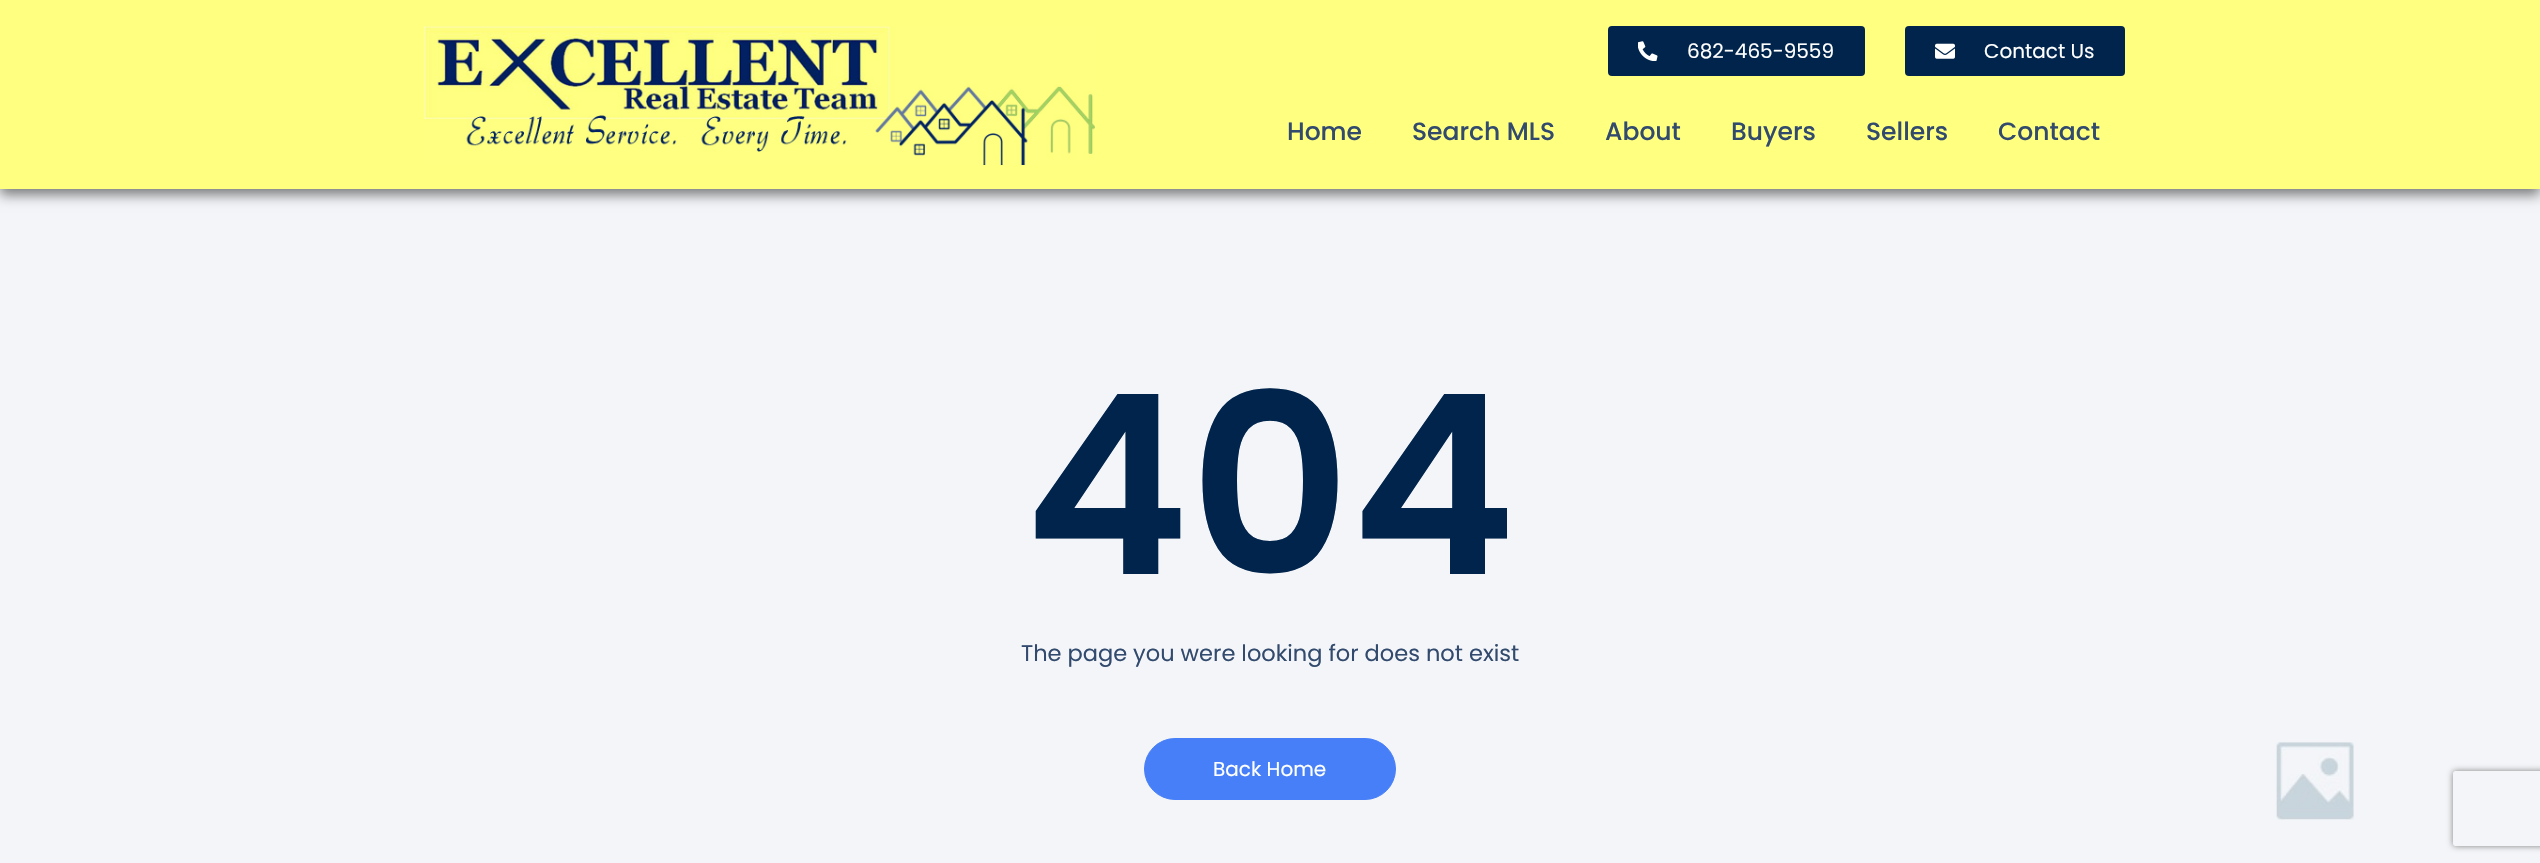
void draw(SkCanvas* canvas) {
    SkPaint paint;
    paint.setAntiAlias(true);
    auto face = [&](const char* family, int weight, float size, bool italic = false) {
        SkFontStyle style(weight, SkFontStyle::kNormal_Width,
            italic ? SkFontStyle::kItalic_Slant : SkFontStyle::kUpright_Slant);
        SkFont result(fontMgr->matchFamilyStyle(family, style), size);
        result.setSubpixel(true);
        return result;
    };
    auto write = [&](const char* s, float x, float y, const SkFont& font, SkColor color) {
        SkPaint ink(SkColor4f::FromColor(color));
        ink.setAntiAlias(true);
        canvas->drawString(s, x, y, font, ink);
    };
    auto block = [&](float x, float y, float w, float h, SkColor color) {
        SkPaint ink(SkColor4f::FromColor(color));
        ink.setAntiAlias(true);
        canvas->drawRect(SkRect::MakeXYWH(x, y, w, h), ink);
    };
    auto card = [&](float x, float y, float w, float h, float radius, SkColor color) {
        SkPaint ink(SkColor4f::FromColor(color));
        ink.setAntiAlias(true);
        canvas->drawRoundRect(SkRect::MakeXYWH(x, y, w, h), radius, radius, ink);
    };
    auto paste = [&](const char* path, float x, float y, float w, float h) {
        auto image = SkImages::DeferredFromEncodedData(SkData::MakeFromFileName(path));
        canvas->drawImageRect(image, SkRect::MakeXYWH(x, y, w, h), SkSamplingOptions());
    };
    canvas->clear(SkColorSetRGB(243, 245, 248));
    paint.setColor(SkColorSetARGB(128, 0, 0, 0));
    paint.setMaskFilter(SkMaskFilter::MakeBlur(kNormal_SkBlurStyle, 6));
    canvas->drawRect(SkRect::MakeXYWH(0, 6, 2540, 189), paint);
    paint.setMaskFilter(nullptr);
    block(0, 0, 2540, 189, SkColorSetRGB(255, 255, 128));
    paste("pic1.png", 424, 26, 671, 139);
    card(1608, 26, 257, 50, 4, SkColorSetRGB(1, 36, 76));
    paste("pic2.png", 1638, 41, 20, 20);
    auto kFont1 = face("Poppins", 400, 20);
    write("682-465-9559", 1687, 58, kFont1, SK_ColorWHITE);
    card(1905, 26, 220, 50, 4, SkColorSetRGB(1, 36, 76));
    paste("pic3.png", 1935, 43, 20, 16);
    write("Contact Us", 1984, 58, kFont1, SK_ColorWHITE);
    auto kFont2 = face("Poppins", 500, 25);
    write("Home", 1287, 140, kFont2, SkColorSetRGB(50, 74, 109));
    write("Search MLS", 1412, 140, kFont2, SkColorSetRGB(50, 74, 109));
    write("About", 1605, 140, kFont2, SkColorSetRGB(50, 74, 109));
    write("Buyers", 1731, 140, kFont2, SkColorSetRGB(50, 74, 109));
    write("Sellers", 1866, 140, kFont2, SkColorSetRGB(50, 74, 109));
    write("Contact", 1998, 140, kFont2, SkColorSetRGB(50, 74, 109));
    paste("pic4.png", 2276, 742, 78, 78);
    auto kFont3 = face("Poppins", 600, 250);
    write("404", 1024, 574, kFont3, SkColorSetRGB(1, 36, 76));
    auto kFont4 = face("Poppins", 400, 22.5f);
    write("The page you were looking for does not exist", 1021, 661, kFont4, SkColorSetRGB(50, 74, 109));
    paint.setColor(SkColorSetRGB(70, 127, 247));
    canvas->drawRoundRect(SkRect::MakeXYWH(1144.5f, 738.5f, 251, 61), 30.5f, 30.5f, paint);
    paint.setStyle(SkPaint::kStroke_Style);
    paint.setStrokeWidth(1);
    canvas->drawRoundRect(SkRect::MakeXYWH(1144.5f, 738.5f, 251, 61), 30.5f, 30.5f, paint);
    write("Back Home", 1213, 776, kFont1, SK_ColorWHITE);
    canvas->save();
    canvas->clipPath(SkPathBuilder(SkPathFillType::kEvenOdd).moveTo(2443, 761).lineTo(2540, 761).lineTo(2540, 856).lineTo(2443, 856).close().moveTo(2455.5f, 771).lineTo(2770.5f, 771).cubicTo(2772, 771, 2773, 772, 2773, 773.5f).lineTo(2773, 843.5f).cubicTo(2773, 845, 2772, 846, 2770.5f, 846).lineTo(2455.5f, 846).cubicTo(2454, 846, 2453, 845, 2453, 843.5f).lineTo(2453, 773.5f).cubicTo(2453, 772, 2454, 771, 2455.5f, 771).close().detach(), true);
    paint.setStyle(SkPaint::kFill_Style);
    paint.setColor(SkColorSetRGB(128, 128, 128));
    paint.setMaskFilter(SkMaskFilter::MakeBlur(kNormal_SkBlurStyle, 3));
    canvas->drawRoundRect(SkRect::MakeXYWH(2453, 771, 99, 75), 2.5f, 2.5f, paint);
    paint.setMaskFilter(nullptr);
    canvas->restore();
}
